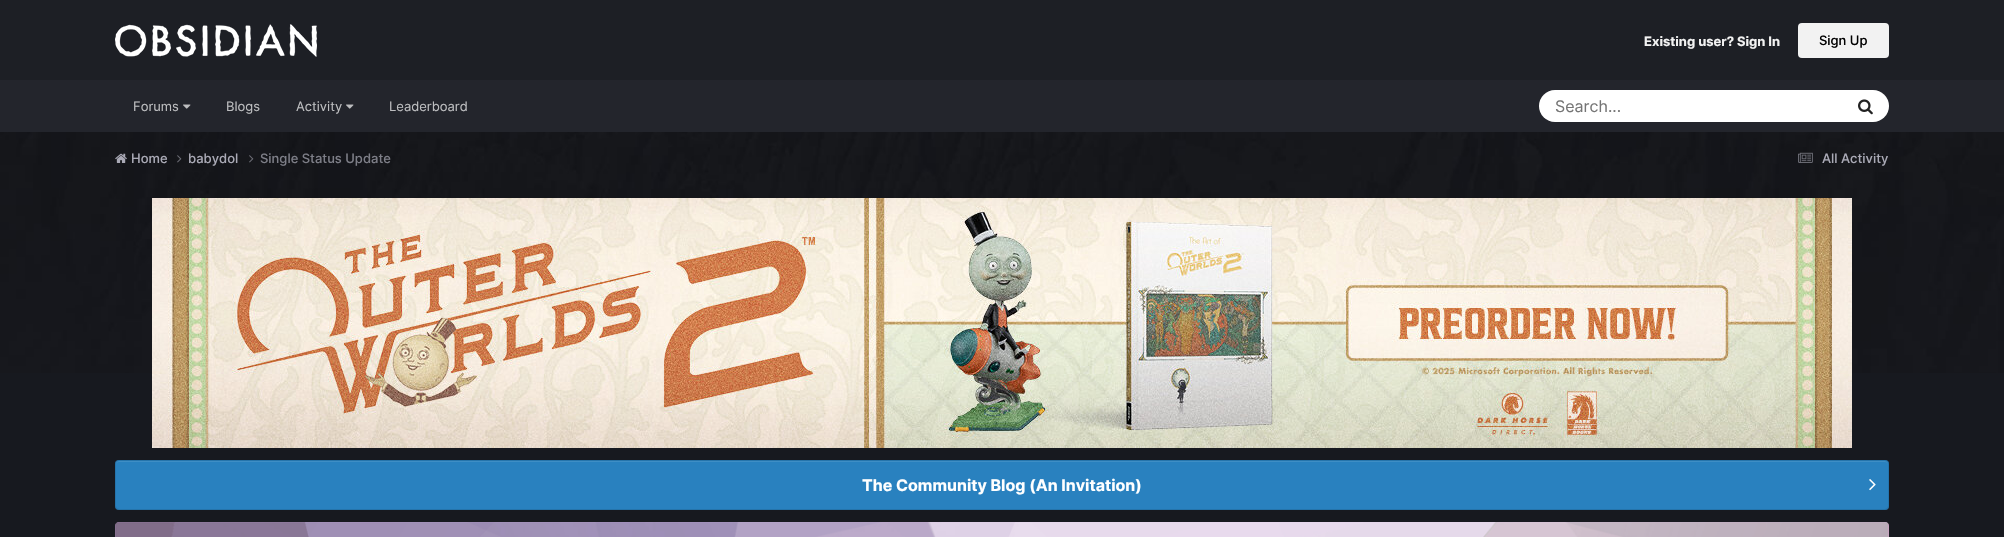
void draw(SkCanvas* canvas) {
    SkPaint paint;
    paint.setAntiAlias(true);
    auto face = [&](const char* family, int weight, float size, bool italic = false) {
        SkFontStyle style(weight, SkFontStyle::kNormal_Width,
            italic ? SkFontStyle::kItalic_Slant : SkFontStyle::kUpright_Slant);
        SkFont result(fontMgr->matchFamilyStyle(family, style), size);
        result.setSubpixel(true);
        return result;
    };
    auto write = [&](const char* s, float x, float y, const SkFont& font, SkColor color) {
        SkPaint ink(SkColor4f::FromColor(color));
        ink.setAntiAlias(true);
        canvas->drawString(s, x, y, font, ink);
    };
    auto block = [&](float x, float y, float w, float h, SkColor color) {
        SkPaint ink(SkColor4f::FromColor(color));
        ink.setAntiAlias(true);
        canvas->drawRect(SkRect::MakeXYWH(x, y, w, h), ink);
    };
    auto card = [&](float x, float y, float w, float h, float radius, SkColor color) {
        SkPaint ink(SkColor4f::FromColor(color));
        ink.setAntiAlias(true);
        canvas->drawRoundRect(SkRect::MakeXYWH(x, y, w, h), radius, radius, ink);
    };
    auto paste = [&](const char* path, float x, float y, float w, float h) {
        auto image = SkImages::DeferredFromEncodedData(SkData::MakeFromFileName(path));
        canvas->drawImageRect(image, SkRect::MakeXYWH(x, y, w, h), SkSamplingOptions());
    };
    canvas->clear(SkColorSetRGB(23, 25, 31));
    block(0, 0, 2004, 80, SkColorSetRGB(29, 31, 37));
    paste("pic1.png", 115, 24, 202, 33);
    auto kFont1 = face("Inter", 700, 13);
    write("Existing user? Sign In", 1644, 46, kFont1, SkColorSetRGB(242, 242, 242));
    card(1798, 23, 91, 35, 4, SkColorSetRGB(242, 242, 242));
    auto kFont2 = face("Inter", 500, 13);
    write("Sign Up", 1819, 45, kFont2, SK_ColorBLACK);
    block(0, 80, 2004, 52, SkColorSetRGB(35, 37, 44));
    auto kFont3 = face("Inter", 400, 13);
    write("Forums", 133, 111, kFont3, SkColorSetRGB(189, 190, 192));
    paste("pic2.png", 183, 104, 8, 5);
    write("Blogs", 226, 111, kFont3, SkColorSetRGB(189, 190, 192));
    write("Activity", 296, 111, kFont3, SkColorSetRGB(189, 190, 192));
    paste("pic2.png", 346, 104, 8, 5);
    write("Leaderboard", 389, 111, kFont3, SkColorSetRGB(189, 190, 192));
    card(1539, 90, 350, 32, 16, SK_ColorWHITE);
    auto kFont4 = face("Inter", 400, 16);
    write("Search...", 1555, 112, kFont4, SkColorSetRGB(117, 117, 117));
    paste("pic3.png", 1858, 99, 15, 16);
    paste("pic4.png", 0, 132, 2004, 241);
    paste("pic5.png", 115, 153, 12, 10);
    write("Home", 131, 163, kFont2, SkColorSetRGB(170, 170, 182));
    paste("pic6.png", 177, 155, 5, 8);
    write("babydol", 188, 163, kFont2, SkColorSetRGB(170, 170, 182));
    paste("pic7.png", 249, 155, 5, 8);
    write("Single Status Update", 260, 163, kFont2, SkColorSetRGB(125, 126, 135));
    paste("pic8.png", 1798, 152, 15, 11);
    write("All Activity", 1822, 163, kFont2, SkColorSetRGB(170, 170, 182));
    paste("pic9.png", 152, 198, 1700, 250);
    card(115, 460, 1774, 50, 4, SkColorSetRGB(41, 129, 191));
    paint.setColor(SkColorSetRGB(62, 142, 197));
    canvas->drawPath(SkPathBuilder().moveTo(119, 462).lineTo(1885, 462).cubicTo(1887, 462, 1888, 463, 1888, 465).lineTo(1888, 464).cubicTo(1888, 462, 1887, 461, 1885, 461).lineTo(119, 461).cubicTo(117, 461, 116, 462, 116, 464).lineTo(116, 465).cubicTo(116, 463, 117, 462, 119, 462).close().detach(), paint);
    paint.setStyle(SkPaint::kStroke_Style);
    paint.setStrokeWidth(1);
    paint.setColor(SkColorSetARGB(26, 0, 0, 0));
    canvas->drawRoundRect(SkRect::MakeXYWH(115.5f, 460.5f, 1773, 49), 3.5f, 3.5f, paint);
    auto kFont5 = face("Inter", 700, 16);
    write("The Community Blog (An Invitation)", 862, 491, kFont5, SK_ColorWHITE);
    paste("pic10.png", 1869, 479, 7, 12);
    paint.setStyle(SkPaint::kFill_Style);
    paint.setColor(SkColorSetRGB(226, 153, 255));
    canvas->drawPath(SkPathBuilder().moveTo(119, 522).lineTo(1885, 522).cubicTo(1887, 522, 1889, 524, 1889, 526).lineTo(1889, 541).lineTo(115, 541).lineTo(115, 526).cubicTo(115, 524, 117, 522, 119, 522).close().detach(), paint);
    paste("pic11.png", 115, 522, 1774, 15);
}
